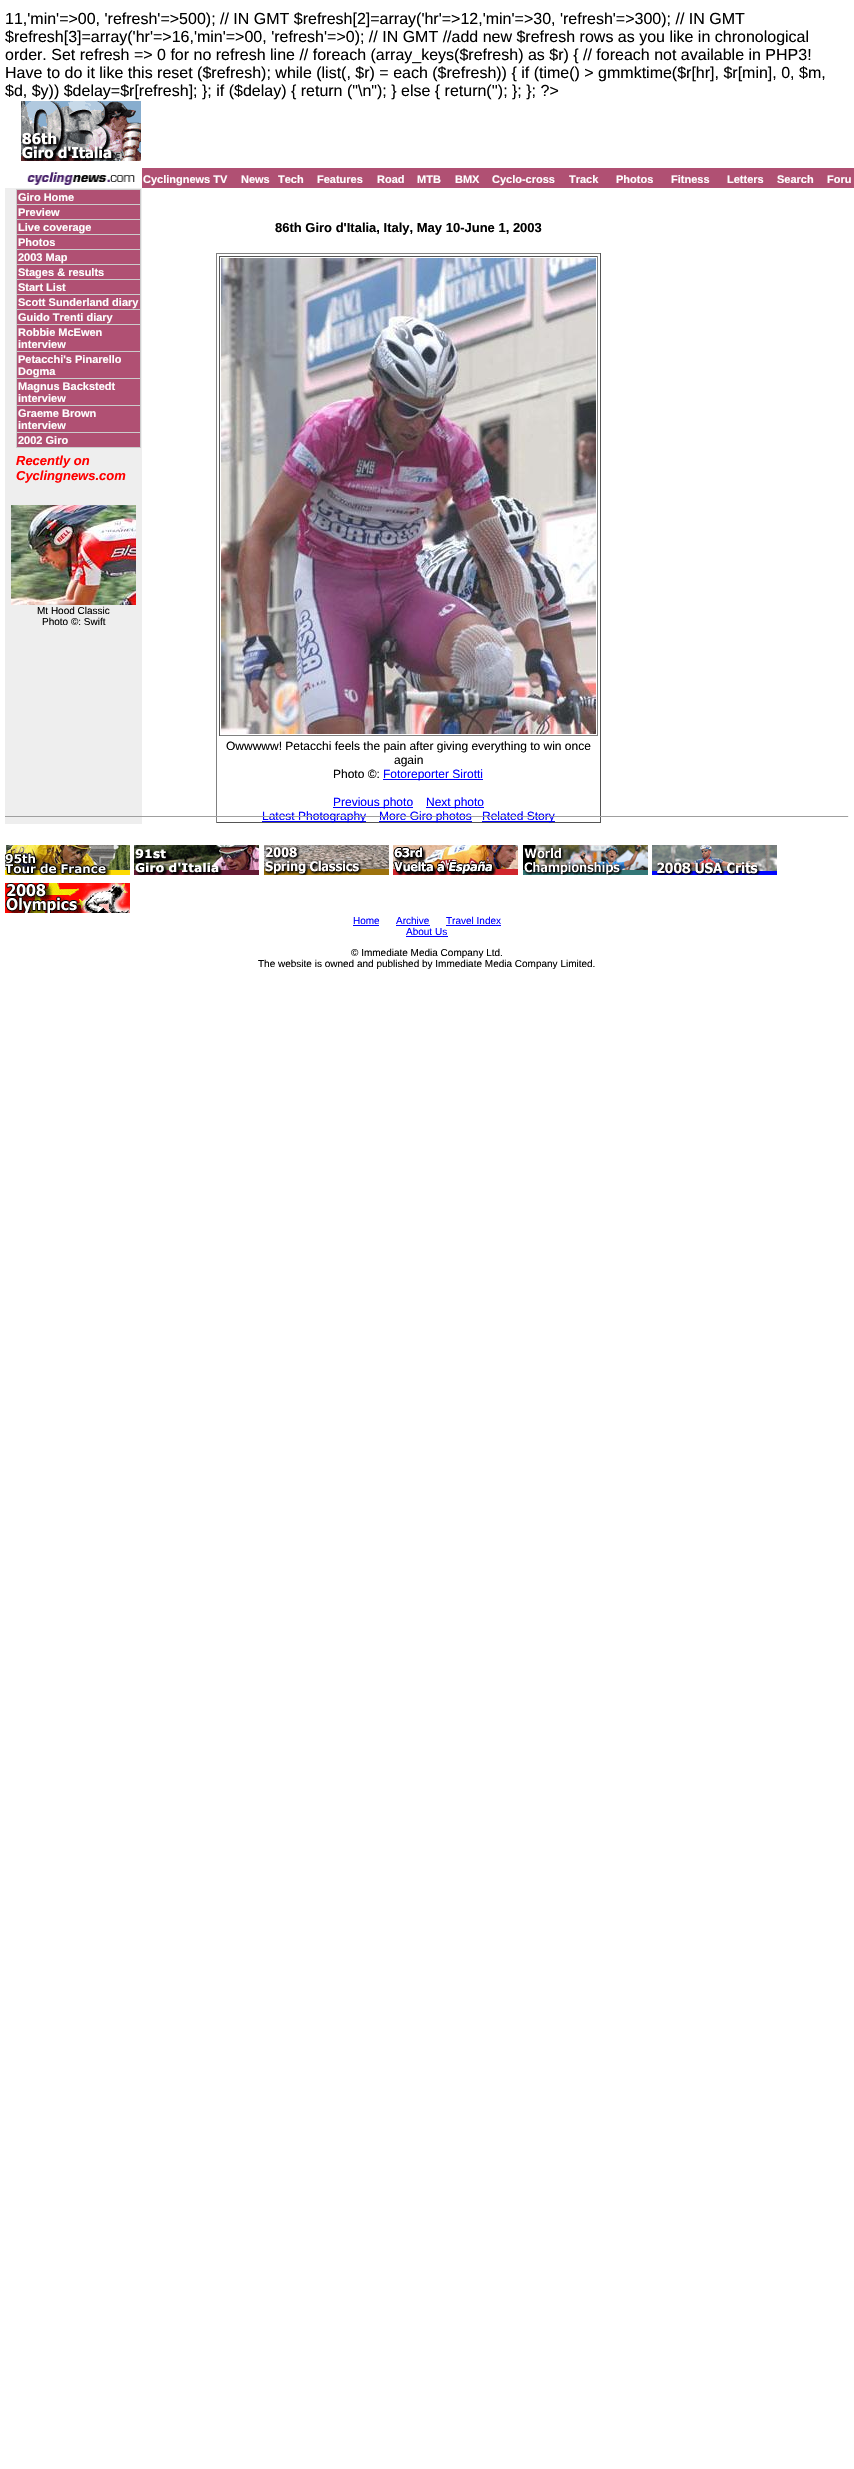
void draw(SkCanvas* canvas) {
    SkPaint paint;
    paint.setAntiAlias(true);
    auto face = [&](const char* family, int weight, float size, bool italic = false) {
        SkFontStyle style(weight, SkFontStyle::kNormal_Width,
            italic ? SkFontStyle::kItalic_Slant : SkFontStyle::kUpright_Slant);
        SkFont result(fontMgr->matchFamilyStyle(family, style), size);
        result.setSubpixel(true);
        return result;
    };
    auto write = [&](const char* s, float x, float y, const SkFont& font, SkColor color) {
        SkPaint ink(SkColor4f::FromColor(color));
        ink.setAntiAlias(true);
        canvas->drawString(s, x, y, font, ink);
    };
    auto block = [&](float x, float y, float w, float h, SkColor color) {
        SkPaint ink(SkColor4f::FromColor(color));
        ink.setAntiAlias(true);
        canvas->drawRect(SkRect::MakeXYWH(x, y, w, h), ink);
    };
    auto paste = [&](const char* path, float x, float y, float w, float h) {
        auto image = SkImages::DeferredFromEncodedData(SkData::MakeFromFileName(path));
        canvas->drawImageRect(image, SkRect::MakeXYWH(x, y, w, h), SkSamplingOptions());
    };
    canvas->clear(SK_ColorWHITE);
    auto kFont1 = face("Liberation Sans", 400, 16);
    write("11,'min'=>00, 'refresh'=>500); // IN GMT $refresh[2]=array('hr'=>12,'min'=>30, 'refresh'=>300); // IN GMT", 5, 24, kFont1, SK_ColorBLACK);
    write("$refresh[3]=array('hr'=>16,'min'=>00, 'refresh'=>0); // IN GMT //add new $refresh rows as you like in chronological", 5, 42, kFont1, SK_ColorBLACK);
    write("order. Set refresh => 0 for no refresh line // foreach (array_keys($refresh) as $r) { // foreach not available in PHP3!", 5, 60, kFont1, SK_ColorBLACK);
    write("Have to do it like this reset ($refresh); while (list(, $r) = each ($refresh)) { if (time() > gmmktime($r[hr], $r[min], 0, $m,", 5, 78, kFont1, SK_ColorBLACK);
    write("$d, $y)) $delay=$r[refresh]; }; if ($delay) { return (\"\\n\"); } else { return(''); }; }; ?>", 5, 96, kFont1, SK_ColorBLACK);
    paste("pic1.png", 21, 101, 120, 60);
    paste("pic2.png", 27, 172, 108, 13);
    block(142, 168, 712, 20, SkColorSetRGB(176, 80, 115));
    auto kFont2 = face("Liberation Sans", 700, 11);
    write("Cyclingnews TV", 143, 183, kFont2, SK_ColorWHITE);
    write("News", 241, 183, kFont2, SK_ColorWHITE);
    write("Tech", 278, 183, kFont2, SK_ColorWHITE);
    write("Features", 317, 183, kFont2, SK_ColorWHITE);
    write("Road", 377, 183, kFont2, SK_ColorWHITE);
    write("MTB", 417, 183, kFont2, SK_ColorWHITE);
    write("BMX", 455, 183, kFont2, SK_ColorWHITE);
    write("Cyclo-cross", 492, 183, kFont2, SK_ColorWHITE);
    write("Track", 569, 183, kFont2, SK_ColorWHITE);
    write("Photos", 616, 183, kFont2, SK_ColorWHITE);
    write("Fitness", 671, 183, kFont2, SK_ColorWHITE);
    write("Letters", 727, 183, kFont2, SK_ColorWHITE);
    write("Search", 777, 183, kFont2, SK_ColorWHITE);
    write("Foru", 827, 183, kFont2, SK_ColorWHITE);
    block(5, 188, 137, 636, SkColorSetRGB(238, 238, 238));
    block(16, 189, 125, 259, SkColorSetRGB(204, 204, 204));
    block(17, 190, 123, 14, SkColorSetRGB(176, 80, 115));
    write("Giro Home", 18, 201, kFont2, SK_ColorWHITE);
    block(17, 205, 123, 14, SkColorSetRGB(176, 80, 115));
    write("Preview", 18, 216, kFont2, SK_ColorWHITE);
    block(17, 220, 123, 14, SkColorSetRGB(176, 80, 115));
    write("Live coverage", 18, 231, kFont2, SK_ColorWHITE);
    block(17, 235, 123, 14, SkColorSetRGB(176, 80, 115));
    write("Photos", 18, 246, kFont2, SK_ColorWHITE);
    block(17, 250, 123, 14, SkColorSetRGB(176, 80, 115));
    write("2003 Map", 18, 261, kFont2, SK_ColorWHITE);
    block(17, 265, 123, 14, SkColorSetRGB(176, 80, 115));
    write("Stages & results", 18, 276, kFont2, SK_ColorWHITE);
    block(17, 280, 123, 14, SkColorSetRGB(176, 80, 115));
    write("Start List", 18, 291, kFont2, SK_ColorWHITE);
    block(17, 295, 123, 14, SkColorSetRGB(176, 80, 115));
    write("Scott Sunderland diary", 18, 306, kFont2, SK_ColorWHITE);
    block(17, 310, 123, 14, SkColorSetRGB(176, 80, 115));
    write("Guido Trenti diary", 18, 321, kFont2, SK_ColorWHITE);
    block(17, 325, 123, 26, SkColorSetRGB(176, 80, 115));
    write("Robbie McEwen", 18, 336, kFont2, SK_ColorWHITE);
    write("interview", 18, 348, kFont2, SK_ColorWHITE);
    block(17, 352, 123, 26, SkColorSetRGB(176, 80, 115));
    write("Petacchi's Pinarello", 18, 363, kFont2, SK_ColorWHITE);
    write("Dogma", 18, 375, kFont2, SK_ColorWHITE);
    block(17, 379, 123, 26, SkColorSetRGB(176, 80, 115));
    write("Magnus Backstedt", 18, 390, kFont2, SK_ColorWHITE);
    write("interview", 18, 402, kFont2, SK_ColorWHITE);
    block(17, 406, 123, 26, SkColorSetRGB(176, 80, 115));
    write("Graeme Brown", 18, 417, kFont2, SK_ColorWHITE);
    write("interview", 18, 429, kFont2, SK_ColorWHITE);
    block(17, 433, 123, 14, SkColorSetRGB(176, 80, 115));
    write("2002 Giro", 18, 444, kFont2, SK_ColorWHITE);
    auto kFont3 = face("Liberation Sans", 700, 13, true);
    write("Recently on", 16, 465, kFont3, SkColorSetRGB(255, 0, 0));
    write("Cyclingnews.com", 16, 480, kFont3, SkColorSetRGB(255, 0, 0));
    paste("pic3.png", 11, 505, 125, 100);
    auto kFont4 = face("Liberation Sans", 400, 10);
    write("Mt Hood Classic", 37, 614, kFont4, SK_ColorBLACK);
    write("Photo ©: Swift", 42, 625, kFont4, SK_ColorBLACK);
    auto kFont5 = face("Liberation Sans", 700, 13);
    write("86th Giro d'Italia, Italy, May 10-June 1, 2003", 275, 232, kFont5, SK_ColorBLACK);
    block(216, 253, 385, 1, SkColorSetRGB(128, 128, 128));
    block(600, 253, 1, 570, SkColorSetRGB(85, 85, 85));
    block(216, 822, 385, 1, SkColorSetRGB(85, 85, 85));
    block(216, 253, 1, 570, SkColorSetRGB(128, 128, 128));
    block(219, 256, 379, 1, SkColorSetRGB(85, 85, 85));
    block(597, 256, 1, 480, SkColorSetRGB(128, 128, 128));
    block(219, 735, 379, 1, SkColorSetRGB(128, 128, 128));
    block(219, 256, 1, 480, SkColorSetRGB(85, 85, 85));
    paste("pic4.png", 221, 258, 375, 476);
    auto kFont6 = face("Liberation Sans", 400, 12);
    write("Owwwww! Petacchi feels the pain after giving everything to win once", 226, 750, kFont6, SK_ColorBLACK);
    write("again", 394, 764, kFont6, SK_ColorBLACK);
    write("Photo ©:", 333, 778, kFont6, SK_ColorBLACK);
    block(383, 779, 100, 1, SkColorSetRGB(0, 0, 255));
    write("Fotoreporter Sirotti", 383, 778, kFont6, SkColorSetRGB(0, 0, 255));
    block(333, 807, 80, 1, SkColorSetRGB(0, 0, 255));
    write("Previous photo", 333, 806, kFont6, SkColorSetRGB(0, 0, 255));
    block(426, 807, 58, 1, SkColorSetRGB(0, 0, 255));
    write("Next photo", 426, 806, kFont6, SkColorSetRGB(0, 0, 255));
    block(262, 821, 104, 1, SkColorSetRGB(0, 0, 255));
    write("Latest Photography", 262, 820, kFont6, SkColorSetRGB(0, 0, 255));
    block(379, 821, 93, 1, SkColorSetRGB(0, 0, 255));
    write("More Giro photos", 379, 820, kFont6, SkColorSetRGB(0, 0, 255));
    block(482, 821, 73, 1, SkColorSetRGB(0, 0, 255));
    write("Related Story", 482, 820, kFont6, SkColorSetRGB(0, 0, 255));
    block(5, 816, 844, 1, SkColorSetRGB(159, 159, 159));
    block(848, 816, 1, 1, SkColorSetRGB(238, 238, 238));
    paste("pic5.png", 5, 845, 125, 30);
    paste("pic6.png", 134, 845, 125, 30);
    paste("pic7.png", 264, 845, 125, 30);
    paste("pic8.png", 393, 845, 125, 30);
    paste("pic9.png", 523, 845, 125, 30);
    paste("pic10.png", 652, 845, 125, 30);
    paste("pic11.png", 5, 883, 125, 30);
    write("Home", 353, 924, kFont4, SkColorSetRGB(0, 0, 255));
    block(353, 925, 26, 1, SkColorSetRGB(0, 0, 255));
    write("Archive", 396, 924, kFont4, SkColorSetRGB(0, 0, 255));
    block(396, 925, 34, 1, SkColorSetRGB(0, 0, 255));
    write("Travel Index", 446, 924, kFont4, SkColorSetRGB(0, 0, 255));
    block(446, 925, 55, 1, SkColorSetRGB(0, 0, 255));
    write("About Us", 406, 935, kFont4, SkColorSetRGB(0, 0, 255));
    block(406, 936, 42, 1, SkColorSetRGB(0, 0, 255));
    write("© Immediate Media Company Ltd.", 351, 956, kFont4, SK_ColorBLACK);
    write("The website is owned and published by Immediate Media Company Limited.", 258, 967, kFont4, SK_ColorBLACK);
}
